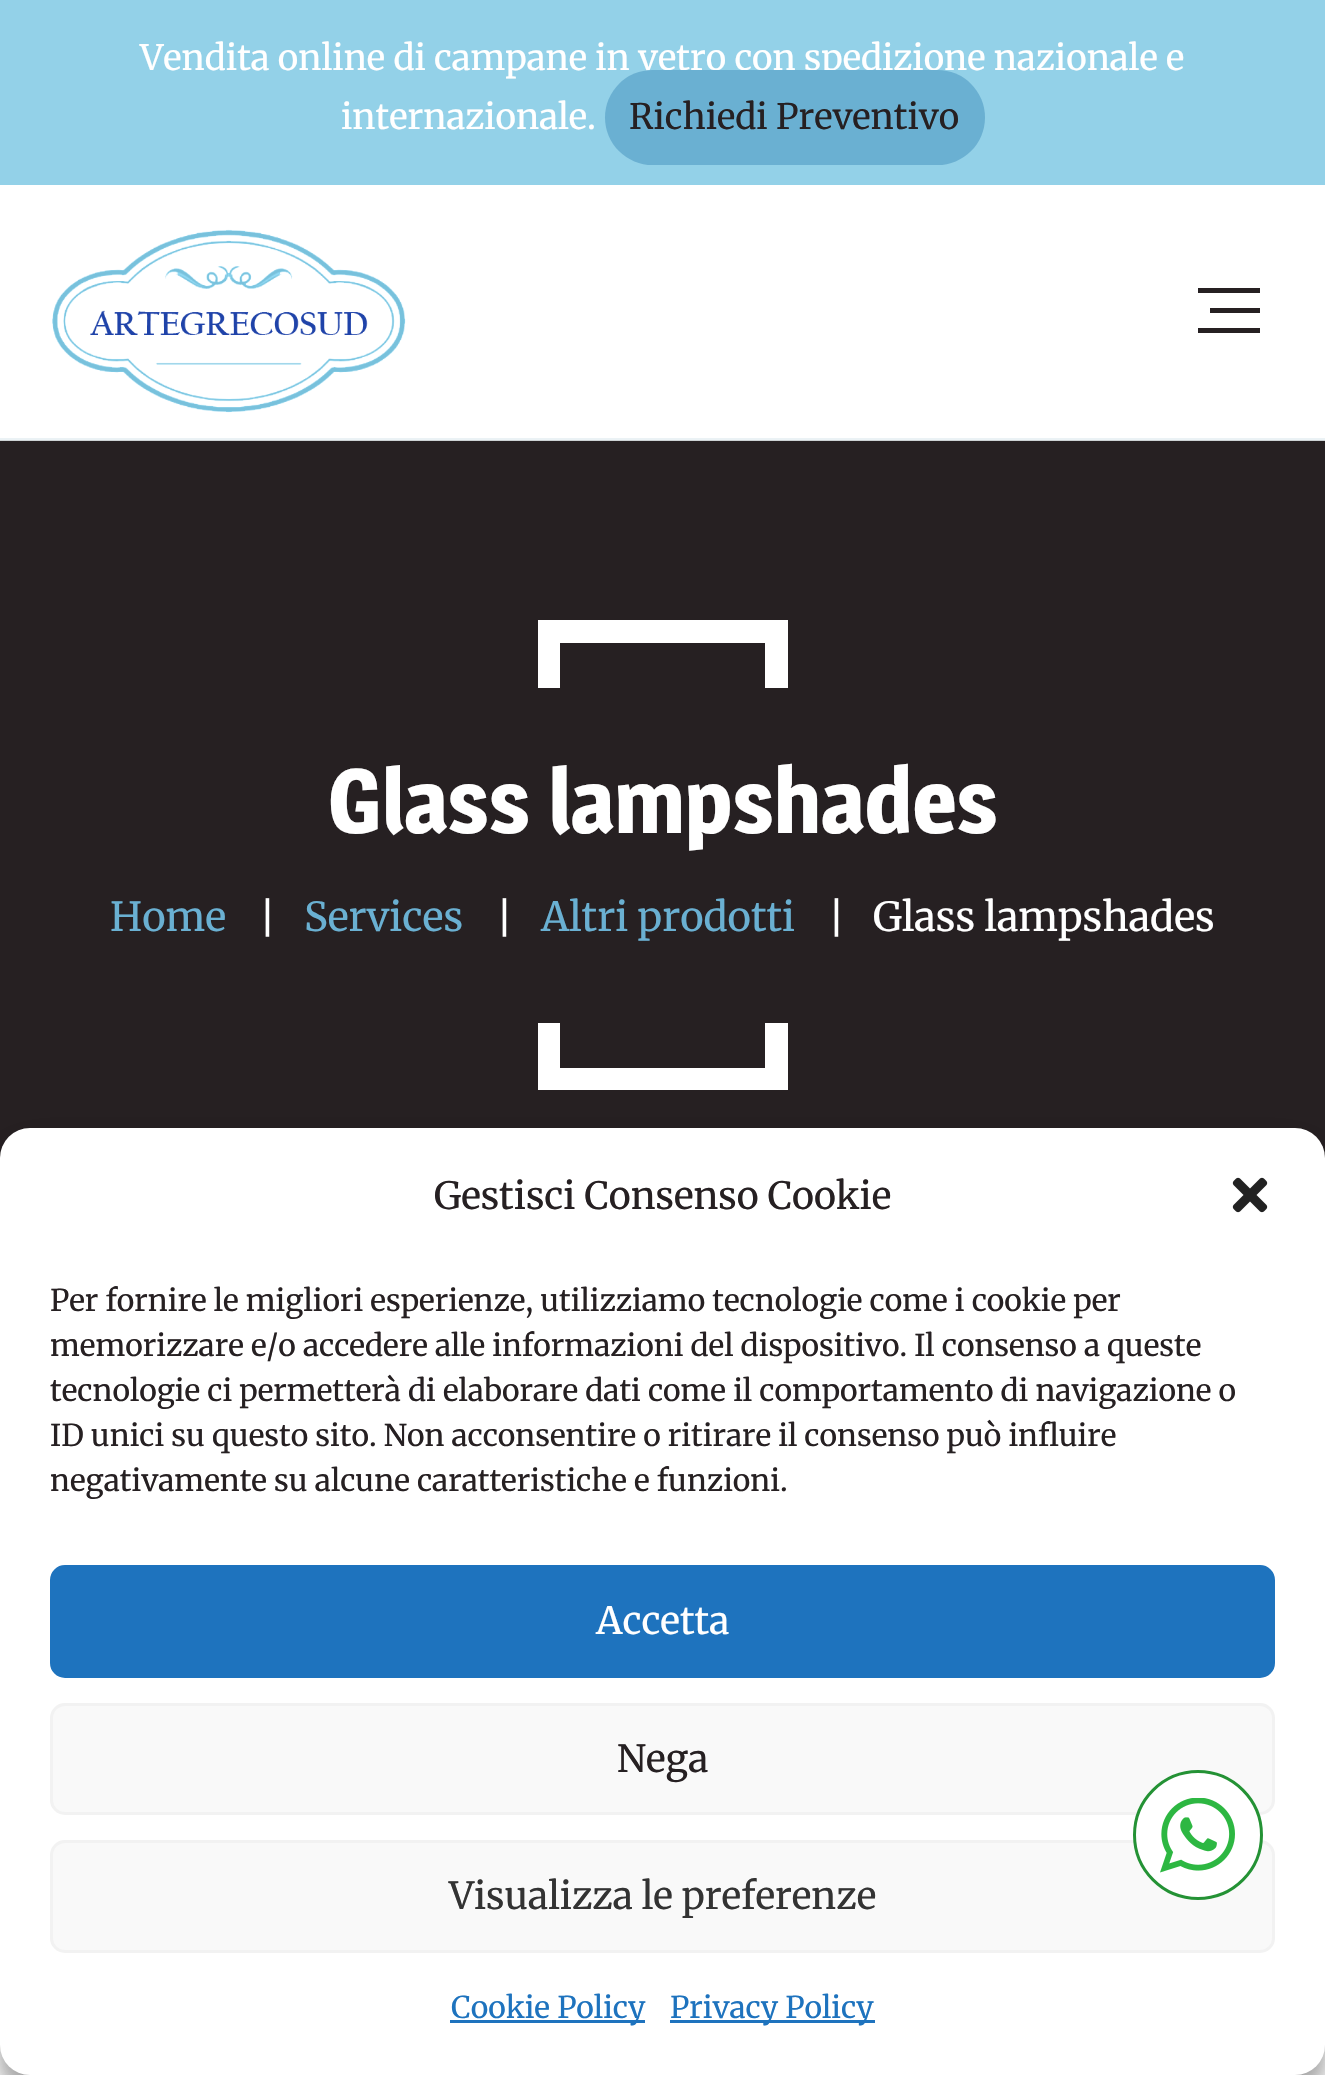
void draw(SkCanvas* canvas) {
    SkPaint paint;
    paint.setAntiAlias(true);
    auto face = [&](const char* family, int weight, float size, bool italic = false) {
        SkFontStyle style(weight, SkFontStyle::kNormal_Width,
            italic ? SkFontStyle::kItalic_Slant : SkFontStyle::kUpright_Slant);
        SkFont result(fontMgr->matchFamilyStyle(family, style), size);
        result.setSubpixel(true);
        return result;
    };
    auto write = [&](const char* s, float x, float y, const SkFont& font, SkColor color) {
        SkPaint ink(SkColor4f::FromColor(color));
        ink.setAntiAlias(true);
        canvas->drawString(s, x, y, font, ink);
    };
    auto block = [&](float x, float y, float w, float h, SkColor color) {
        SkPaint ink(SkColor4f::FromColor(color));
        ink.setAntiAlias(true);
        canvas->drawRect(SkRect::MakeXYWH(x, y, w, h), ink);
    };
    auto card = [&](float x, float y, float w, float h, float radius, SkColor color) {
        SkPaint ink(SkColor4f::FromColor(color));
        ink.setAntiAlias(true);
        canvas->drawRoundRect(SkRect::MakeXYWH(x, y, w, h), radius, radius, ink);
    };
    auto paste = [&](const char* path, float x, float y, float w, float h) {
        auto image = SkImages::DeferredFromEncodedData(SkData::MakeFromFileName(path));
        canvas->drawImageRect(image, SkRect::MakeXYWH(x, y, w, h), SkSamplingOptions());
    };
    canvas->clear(SK_ColorWHITE);
    block(0, 441, 1325, 717, SkColorSetRGB(38, 32, 34));
    block(0, 0, 1325, 185, SkColorSetRGB(147, 209, 232));
    auto kFont1 = face("Merriweather", 400, 35);
    write("Vendita online di campane in vetro con spedizione nazionale e", 140, 70, kFont1, SK_ColorWHITE);
    write("internazionale.", 341, 129, kFont1, SK_ColorWHITE);
    card(605, 70, 380, 95, 47.5f, SkColorSetRGB(106, 176, 210));
    write("Richiedi Preventivo", 629, 129, kFont1, SkColorSetRGB(38, 32, 34));
    block(0, 438, 1325, 2, SkColorSetRGB(235, 242, 245));
    block(0, 440, 1325, 1, SkColorSetRGB(205, 211, 213));
    paste("pic1.png", 52, 229, 354, 184);
    block(1198, 288, 62, 5, SkColorSetRGB(38, 32, 34));
    block(1210, 308, 50, 5, SkColorSetRGB(38, 32, 34));
    block(1198, 328, 62, 5, SkColorSetRGB(38, 32, 34));
    block(538, 620, 250, 23, SK_ColorWHITE);
    block(538, 643, 22, 45, SK_ColorWHITE);
    block(765, 643, 23, 45, SK_ColorWHITE);
    auto kFont2 = face("Magra", 700, 90);
    write("Glass lampshades", 328, 833, kFont2, SK_ColorWHITE);
    auto kFont3 = face("Merriweather", 400, 40);
    write("Home", 110, 931, kFont3, SkColorSetRGB(106, 176, 210));
    write("|", 259, 933, kFont3, SK_ColorWHITE);
    write("Services", 304, 931, kFont3, SkColorSetRGB(106, 176, 210));
    write("|", 496, 933, kFont3, SK_ColorWHITE);
    write("Altri prodotti", 541, 931, kFont3, SkColorSetRGB(106, 176, 210));
    write("|", 828, 933, kFont3, SK_ColorWHITE);
    write("Glass lampshades", 873, 931, kFont3, SK_ColorWHITE);
    block(538, 1068, 250, 22, SK_ColorWHITE);
    block(538, 1023, 22, 45, SK_ColorWHITE);
    block(765, 1023, 23, 45, SK_ColorWHITE);
    paint.setColor(SkColorSetARGB(59, 0, 0, 0));
    paint.setMaskFilter(SkMaskFilter::MakeBlur(kNormal_SkBlurStyle, 7.5f));
    canvas->drawRoundRect(SkRect::MakeXYWH(0, 1143, 1325, 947), 30, 30, paint);
    paint.setMaskFilter(nullptr);
    paint.setColor(SkColorSetARGB(48, 0, 0, 0));
    paint.setMaskFilter(SkMaskFilter::MakeBlur(kNormal_SkBlurStyle, 25));
    canvas->drawRoundRect(SkRect::MakeXYWH(0, 1153, 1325, 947), 30, 30, paint);
    paint.setMaskFilter(nullptr);
    card(0, 1128, 1325, 947, 30, SK_ColorWHITE);
    auto kFont4 = face("Merriweather", 400, 37.5f);
    write("Gestisci Consenso Cookie", 434, 1209, kFont4, SkColorSetRGB(38, 32, 34));
    paste("pic2.png", 1232, 1177, 36, 36);
    auto kFont5 = face("Merriweather", 400, 30);
    write("Per fornire le migliori esperienze, utilizziamo tecnologie come i cookie per", 50, 1311, kFont5, SkColorSetRGB(38, 32, 34));
    write("memorizzare e/o accedere alle informazioni del dispositivo. Il consenso a queste", 50, 1356, kFont5, SkColorSetRGB(38, 32, 34));
    write("tecnologie ci permetterà di elaborare dati come il comportamento di navigazione o", 50, 1401, kFont5, SkColorSetRGB(38, 32, 34));
    write("ID unici su questo sito. Non acconsentire o ritirare il consenso può influire", 50, 1446, kFont5, SkColorSetRGB(38, 32, 34));
    write("negativamente su alcune caratteristiche e funzioni.", 50, 1491, kFont5, SkColorSetRGB(38, 32, 34));
    paint.setColor(SkColorSetRGB(30, 115, 190));
    canvas->drawRoundRect(SkRect::MakeXYWH(51.5f, 1566.5f, 1222, 110), 13.5f, 13.5f, paint);
    paint.setStyle(SkPaint::kStroke_Style);
    paint.setStrokeWidth(3);
    canvas->drawRoundRect(SkRect::MakeXYWH(51.5f, 1566.5f, 1222, 110), 13.5f, 13.5f, paint);
    write("Accetta", 596, 1634, kFont4, SK_ColorWHITE);
    paint.setStyle(SkPaint::kFill_Style);
    paint.setColor(SkColorSetRGB(249, 249, 249));
    canvas->drawRoundRect(SkRect::MakeXYWH(51.5f, 1704.5f, 1222, 109), 13.5f, 13.5f, paint);
    paint.setStyle(SkPaint::kStroke_Style);
    paint.setColor(SkColorSetRGB(242, 242, 242));
    canvas->drawRoundRect(SkRect::MakeXYWH(51.5f, 1704.5f, 1222, 109), 13.5f, 13.5f, paint);
    write("Nega", 617, 1772, kFont4, SkColorSetRGB(38, 32, 34));
    paint.setStyle(SkPaint::kFill_Style);
    paint.setColor(SkColorSetRGB(249, 249, 249));
    canvas->drawRoundRect(SkRect::MakeXYWH(51.5f, 1841.5f, 1222, 110), 13.5f, 13.5f, paint);
    paint.setStyle(SkPaint::kStroke_Style);
    paint.setColor(SkColorSetRGB(242, 242, 242));
    canvas->drawRoundRect(SkRect::MakeXYWH(51.5f, 1841.5f, 1222, 110), 13.5f, 13.5f, paint);
    write("Visualizza le preferenze", 449, 1909, kFont4, SkColorSetRGB(51, 51, 51));
    block(450, 2020, 195, 3, SkColorSetRGB(30, 115, 190));
    write("Cookie Policy", 451, 2018, kFont5, SkColorSetRGB(30, 115, 190));
    block(670, 2020, 205, 3, SkColorSetRGB(30, 115, 190));
    write("Privacy Policy", 670, 2018, kFont5, SkColorSetRGB(30, 115, 190));
    paint.setStyle(SkPaint::kFill_Style);
    paint.setColor(SK_ColorWHITE);
    canvas->drawCircle(1198, 1835, 65, paint);
    paste("pic3.png", 1160, 1798, 75, 75);
    paint.setStyle(SkPaint::kStroke_Style);
    paint.setColor(SkColorSetRGB(36, 146, 53));
    canvas->drawCircle(1198, 1835, 63.5f, paint);
}
